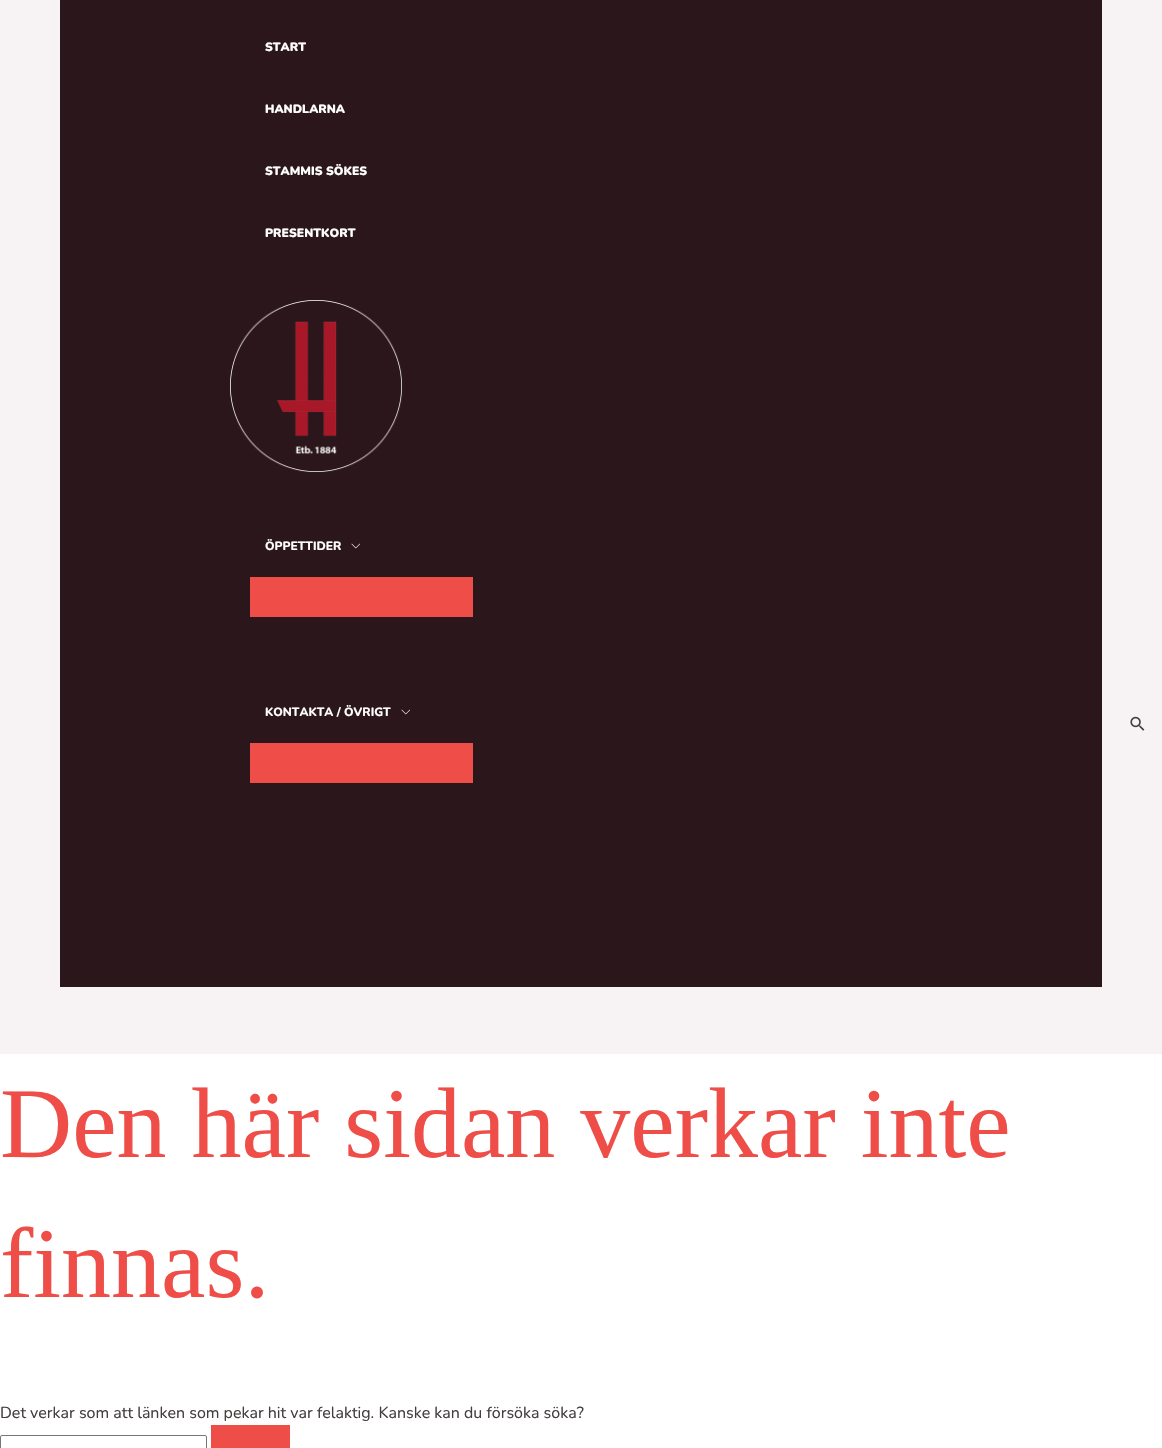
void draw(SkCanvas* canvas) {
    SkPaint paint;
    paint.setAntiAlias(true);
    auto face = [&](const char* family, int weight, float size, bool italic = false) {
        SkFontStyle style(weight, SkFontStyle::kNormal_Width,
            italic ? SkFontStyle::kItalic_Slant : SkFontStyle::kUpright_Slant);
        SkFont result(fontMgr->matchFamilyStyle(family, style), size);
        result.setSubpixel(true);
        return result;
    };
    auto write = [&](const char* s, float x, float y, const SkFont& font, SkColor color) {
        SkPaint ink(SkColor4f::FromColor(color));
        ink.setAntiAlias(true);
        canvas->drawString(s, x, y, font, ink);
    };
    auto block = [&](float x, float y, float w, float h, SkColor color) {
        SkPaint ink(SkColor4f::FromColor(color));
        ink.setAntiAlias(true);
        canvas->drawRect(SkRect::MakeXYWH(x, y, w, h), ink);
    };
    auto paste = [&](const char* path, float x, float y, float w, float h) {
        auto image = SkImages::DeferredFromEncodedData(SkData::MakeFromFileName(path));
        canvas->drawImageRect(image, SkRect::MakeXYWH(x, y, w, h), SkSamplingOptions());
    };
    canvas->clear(SkColorSetRGB(247, 243, 245));
    block(60, 0, 1042, 987, SkColorSetRGB(43, 22, 27));
    auto kFont1 = face("Nunito", 900, 12);
    write("START", 265, 51, kFont1, SK_ColorWHITE);
    write("HANDLARNA", 265, 113, kFont1, SK_ColorWHITE);
    write("STAMMIS SÖKES", 265, 175, kFont1, SK_ColorWHITE);
    write("PRESENTKORT", 265, 237, kFont1, SK_ColorWHITE);
    paste("pic1.png", 230, 300, 172, 172);
    auto kFont2 = face("Nunito", 800, 12);
    write("ÖPPETTIDER", 265, 550, kFont2, SK_ColorWHITE);
    paste("pic2.png", 351, 543, 9, 6);
    block(250, 577, 223, 40, SkColorSetRGB(239, 77, 72));
    write("KONTAKTA / ÖVRIGT", 265, 716, kFont2, SK_ColorWHITE);
    paste("pic2.png", 401, 709, 9, 6);
    block(250, 743, 223, 40, SkColorSetRGB(239, 77, 72));
    block(0, 1054, 1162, 394, SK_ColorWHITE);
    auto kFont3 = face("Liberation Serif", 400, 100);
    write("Den här sidan verkar inte", 0, 1157, kFont3, SkColorSetRGB(239, 77, 72));
    write("finnas.", 0, 1297, kFont3, SkColorSetRGB(239, 77, 72));
    paste("pic3.png", 1130, 716, 15, 15);
    paint.setStyle(SkPaint::kStroke_Style);
    paint.setStrokeWidth(1);
    paint.setColor(SkColorSetRGB(118, 118, 118));
    canvas->drawRoundRect(SkRect::MakeXYWH(0.5f, 1435.5f, 206, 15), 1.5f, 1.5f, paint);
    block(211, 1425, 79, 23, SkColorSetRGB(239, 77, 72));
    auto kFont4 = face("Nunito", 400, 16);
    write("Det verkar som att länken som pekar hit var felaktig. Kanske kan du försöka söka?", 0, 1418, kFont4, SkColorSetRGB(69, 62, 62));
}
